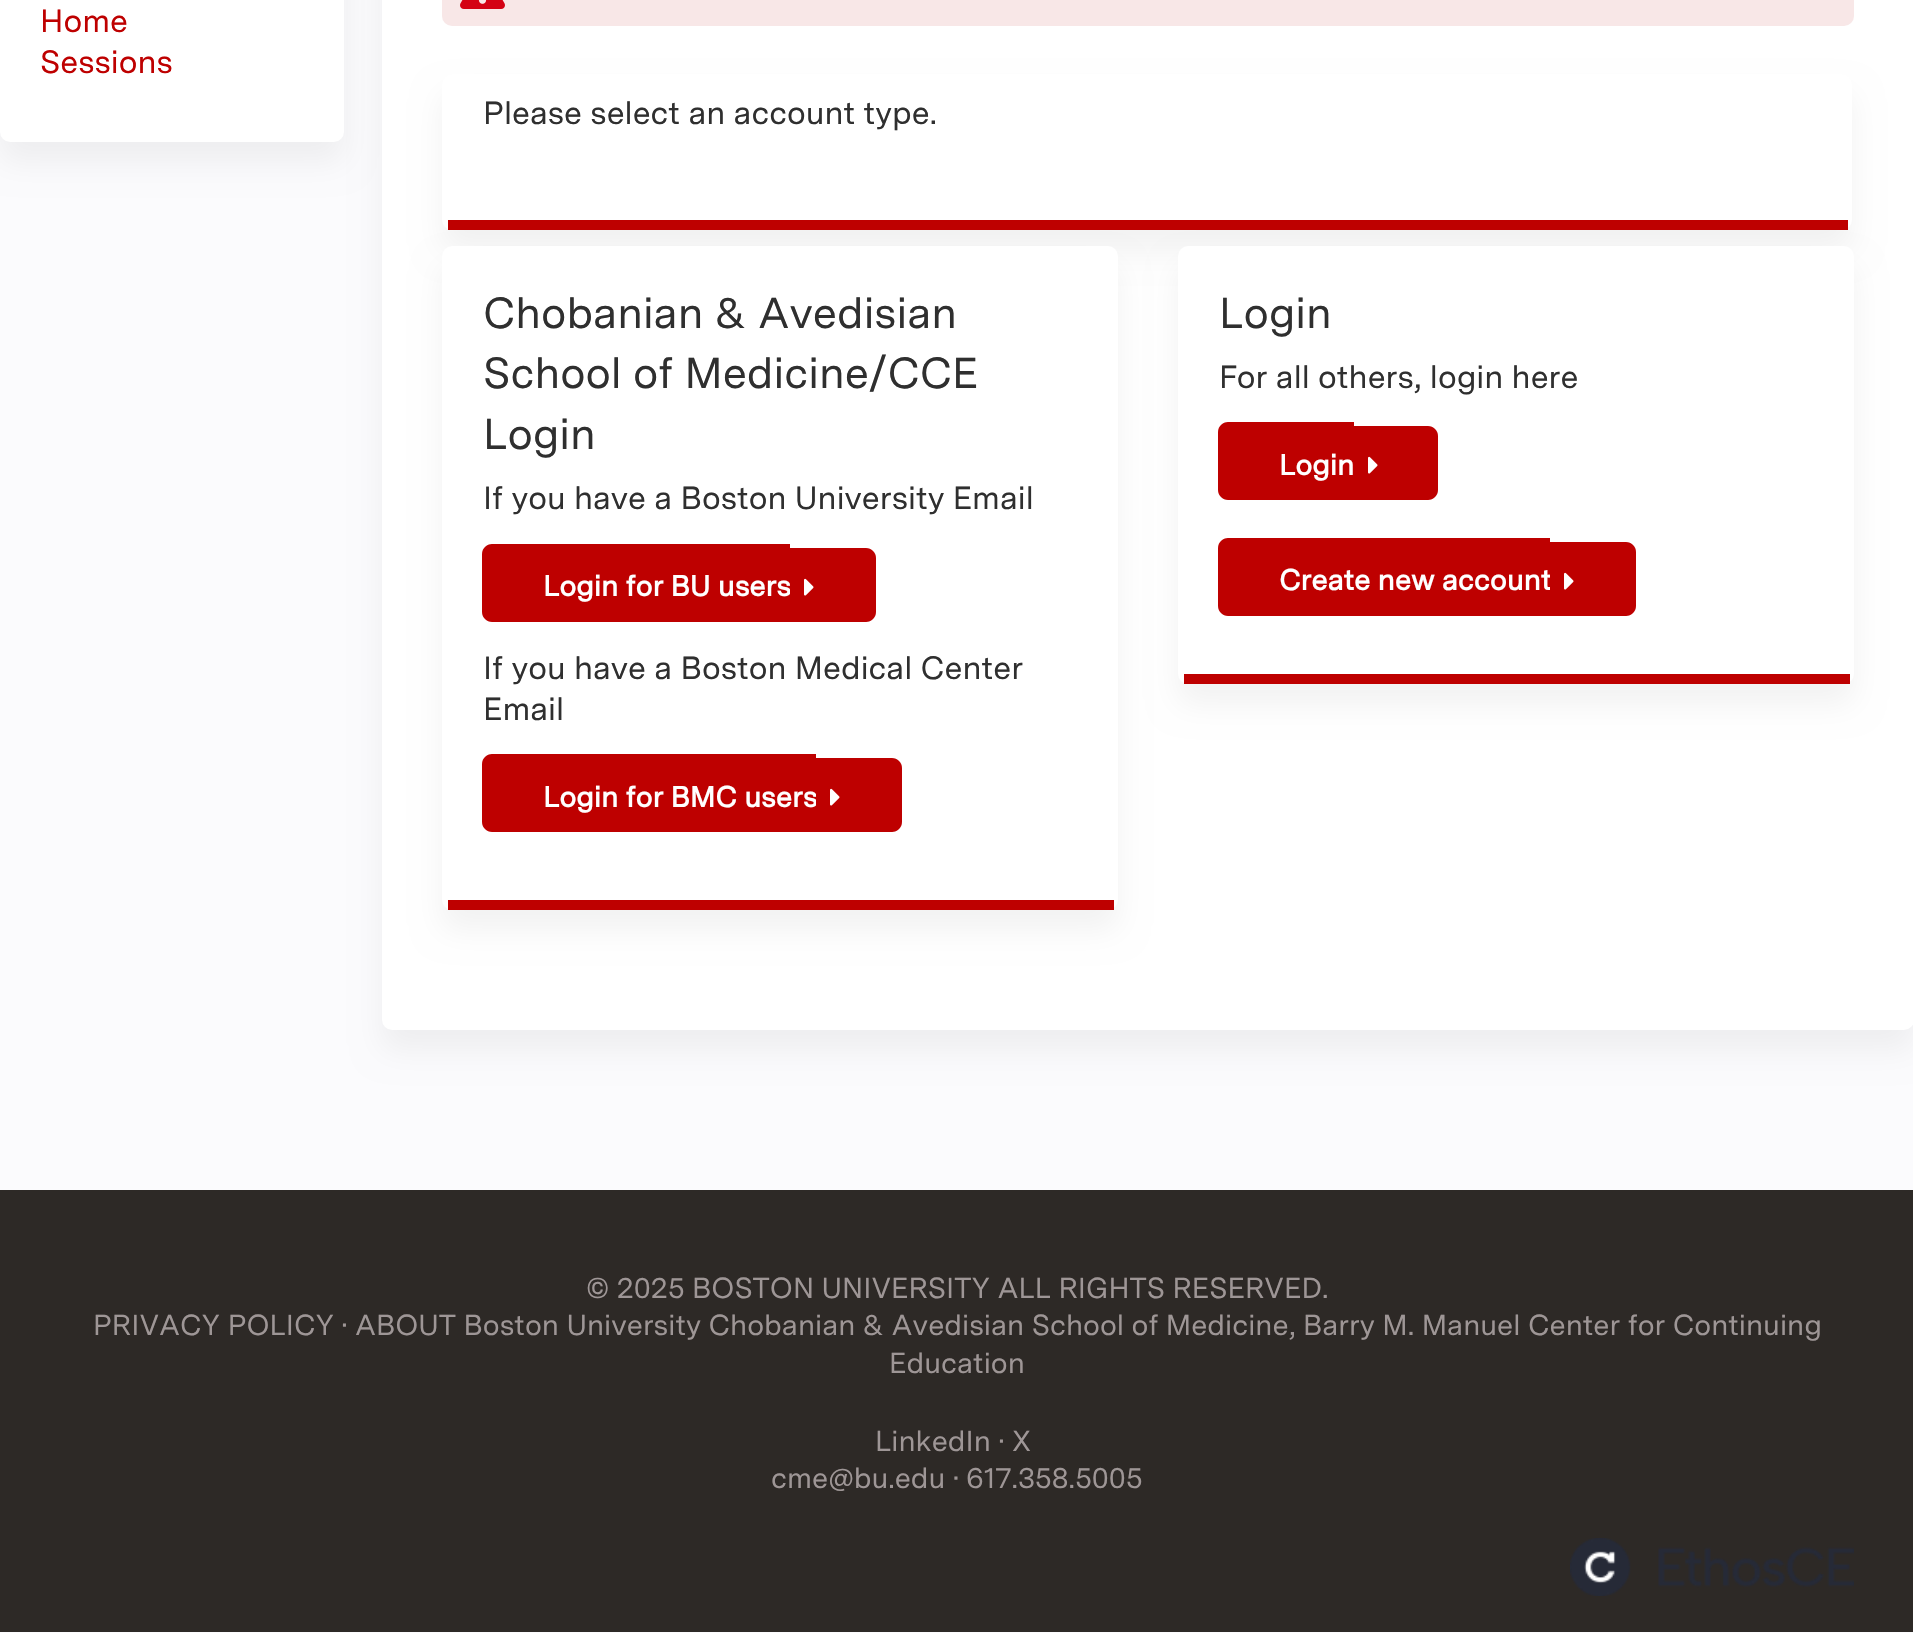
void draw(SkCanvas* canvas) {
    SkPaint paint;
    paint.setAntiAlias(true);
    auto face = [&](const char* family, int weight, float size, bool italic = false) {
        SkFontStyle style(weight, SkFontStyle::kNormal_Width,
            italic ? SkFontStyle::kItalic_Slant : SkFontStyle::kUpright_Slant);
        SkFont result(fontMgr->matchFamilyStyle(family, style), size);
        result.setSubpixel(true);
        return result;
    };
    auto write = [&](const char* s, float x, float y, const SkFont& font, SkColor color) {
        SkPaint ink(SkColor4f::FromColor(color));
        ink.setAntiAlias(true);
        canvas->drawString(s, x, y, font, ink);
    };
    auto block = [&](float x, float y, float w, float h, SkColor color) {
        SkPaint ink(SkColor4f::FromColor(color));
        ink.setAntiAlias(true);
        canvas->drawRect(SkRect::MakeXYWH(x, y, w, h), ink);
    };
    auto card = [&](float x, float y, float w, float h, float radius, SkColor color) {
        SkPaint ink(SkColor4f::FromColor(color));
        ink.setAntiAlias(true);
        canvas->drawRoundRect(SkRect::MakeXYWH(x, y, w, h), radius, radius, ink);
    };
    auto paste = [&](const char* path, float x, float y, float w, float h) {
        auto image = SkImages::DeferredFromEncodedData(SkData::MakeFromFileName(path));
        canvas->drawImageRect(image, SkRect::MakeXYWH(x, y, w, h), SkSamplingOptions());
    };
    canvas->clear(SkColorSetRGB(251, 251, 253));
    paint.setColor(SkColorSetARGB(13, 0, 0, 0));
    paint.setMaskFilter(SkMaskFilter::MakeBlur(kNormal_SkBlurStyle, 15));
    canvas->drawRoundRect(SkRect::MakeXYWH(382, -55, 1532, 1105), 10, 10, paint);
    paint.setMaskFilter(nullptr);
    card(382, -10, 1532, 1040, 10, SK_ColorWHITE);
    paint.setMaskFilter(SkMaskFilter::MakeBlur(kNormal_SkBlurStyle, 15));
    canvas->drawRoundRect(SkRect::MakeXYWH(0, -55, 344, 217), 10, 10, paint);
    paint.setMaskFilter(nullptr);
    card(0, -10, 344, 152, 10, SK_ColorWHITE);
    auto kFont1 = face("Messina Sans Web", 400, 32);
    write("Home", 40, 32, kFont1, SkColorSetRGB(190, 0, 0));
    write("Sessions", 40, 73, kFont1, SkColorSetRGB(190, 0, 0));
    card(442, -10, 1412, 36, 10, SkColorSetRGB(248, 231, 231));
    paste("pic1.png", 460, 0, 45, 9);
    paint.setMaskFilter(SkMaskFilter::MakeBlur(kNormal_SkBlurStyle, 15));
    canvas->drawRoundRect(SkRect::MakeXYWH(442, 94, 1410, 156), 10, 10, paint);
    paint.setMaskFilter(nullptr);
    card(442, 74, 1410, 156, 10, SK_ColorWHITE);
    block(448, 220, 1400, 10, SkColorSetRGB(190, 0, 0));
    write("Please select an account type.", 483, 124, kFont1, SkColorSetRGB(47, 47, 47));
    paint.setMaskFilter(SkMaskFilter::MakeBlur(kNormal_SkBlurStyle, 15));
    canvas->drawRoundRect(SkRect::MakeXYWH(442, 266, 676, 664), 10, 10, paint);
    paint.setMaskFilter(nullptr);
    card(442, 246, 676, 664, 10, SK_ColorWHITE);
    block(448, 900, 666, 10, SkColorSetRGB(190, 0, 0));
    auto kFont2 = face("Messina Sans Web", 400, 43.25f);
    write("Chobanian & Avedisian", 483, 328, kFont2, SkColorSetRGB(47, 47, 47));
    write("School of Medicine/CCE", 483, 388, kFont2, SkColorSetRGB(47, 47, 47));
    write("Login", 483, 449, kFont2, SkColorSetRGB(47, 47, 47));
    write("If you have a Boston University Email", 483, 509, kFont1, SkColorSetRGB(47, 47, 47));
    paint.setColor(SkColorSetRGB(190, 0, 0));
    canvas->drawPath(SkPathBuilder().moveTo(492, 544).lineTo(790, 544).lineTo(790, 622).lineTo(492, 622).cubicTo(486.5f, 622, 482, 617.5f, 482, 612).lineTo(482, 554).cubicTo(482, 548.5f, 486.5f, 544, 492, 544).close().detach(), paint);
    auto kFont3 = face("Messina Sans Web", 700, 28.8f);
    write("Login for BU users", 543, 596, kFont3, SK_ColorWHITE);
    canvas->drawPath(SkPathBuilder().moveTo(790, 548).lineTo(866, 548).cubicTo(871.5f, 548, 876, 552.5f, 876, 558).lineTo(876, 612).cubicTo(876, 617.5f, 871.5f, 622, 866, 622).lineTo(790, 622).close().detach(), paint);
    paste("pic2.png", 804, 578, 10, 18);
    write("If you have a Boston Medical Center", 483, 679, kFont1, SkColorSetRGB(47, 47, 47));
    write("Email", 483, 720, kFont1, SkColorSetRGB(47, 47, 47));
    canvas->drawPath(SkPathBuilder().moveTo(492, 754).lineTo(816, 754).lineTo(816, 832).lineTo(492, 832).cubicTo(486.5f, 832, 482, 827.5f, 482, 822).lineTo(482, 764).cubicTo(482, 758.5f, 486.5f, 754, 492, 754).close().detach(), paint);
    write("Login for BMC users", 543, 807, kFont3, SK_ColorWHITE);
    canvas->drawPath(SkPathBuilder().moveTo(816, 758).lineTo(892, 758).cubicTo(897.5f, 758, 902, 762.5f, 902, 768).lineTo(902, 822).cubicTo(902, 827.5f, 897.5f, 832, 892, 832).lineTo(816, 832).close().detach(), paint);
    paste("pic2.png", 830, 788, 10, 18);
    paint.setColor(SkColorSetARGB(13, 0, 0, 0));
    paint.setMaskFilter(SkMaskFilter::MakeBlur(kNormal_SkBlurStyle, 15));
    canvas->drawRoundRect(SkRect::MakeXYWH(1178, 266, 676, 438), 10, 10, paint);
    paint.setMaskFilter(nullptr);
    card(1178, 246, 676, 438, 10, SK_ColorWHITE);
    block(1184, 674, 666, 10, SkColorSetRGB(190, 0, 0));
    write("Login", 1219, 328, kFont2, SkColorSetRGB(47, 47, 47));
    write("For all others, login here", 1219, 388, kFont1, SkColorSetRGB(47, 47, 47));
    paint.setColor(SkColorSetRGB(190, 0, 0));
    canvas->drawPath(SkPathBuilder().moveTo(1228, 422).lineTo(1354, 422).lineTo(1354, 500).lineTo(1228, 500).cubicTo(1222.5f, 500, 1218, 495.5f, 1218, 490).lineTo(1218, 432).cubicTo(1218, 426.5f, 1222.5f, 422, 1228, 422).close().detach(), paint);
    write("Login", 1279, 475, kFont3, SK_ColorWHITE);
    canvas->drawPath(SkPathBuilder().moveTo(1354, 426).lineTo(1428, 426).cubicTo(1433.5f, 426, 1438, 430.5f, 1438, 436).lineTo(1438, 490).cubicTo(1438, 495.5f, 1433.5f, 500, 1428, 500).lineTo(1354, 500).close().detach(), paint);
    paste("pic2.png", 1368, 456, 10, 18);
    canvas->drawPath(SkPathBuilder().moveTo(1228, 538).lineTo(1550, 538).lineTo(1550, 616).lineTo(1228, 616).cubicTo(1222.5f, 616, 1218, 611.5f, 1218, 606).lineTo(1218, 548).cubicTo(1218, 542.5f, 1222.5f, 538, 1228, 538).close().detach(), paint);
    write("Create new account", 1279, 590, kFont3, SK_ColorWHITE);
    canvas->drawPath(SkPathBuilder().moveTo(1550, 542).lineTo(1626, 542).cubicTo(1631.5f, 542, 1636, 546.5f, 1636, 552).lineTo(1636, 606).cubicTo(1636, 611.5f, 1631.5f, 616, 1626, 616).lineTo(1550, 616).close().detach(), paint);
    paste("pic2.png", 1564, 572, 10, 18);
    block(0, 1190, 1913, 442, SkColorSetRGB(45, 41, 38));
    auto kFont4 = face("Messina Sans Web", 400, 28.8f);
    write("© 2025 BOSTON UNIVERSITY ALL RIGHTS RESERVED.", 586, 1298, kFont4, SkColorSetRGB(158, 150, 150));
    write("PRIVACY POLICY · ABOUT Boston University Chobanian & Avedisian School of Medicine, Barry M. Manuel Center for Continuing", 93, 1335, kFont4, SkColorSetRGB(158, 150, 150));
    write("Education", 889, 1373, kFont4, SkColorSetRGB(158, 150, 150));
    write("LinkedIn · X", 875, 1451, kFont4, SkColorSetRGB(158, 150, 150));
    write("cme@bu.edu · 617.358.5005", 771, 1488, kFont4, SkColorSetRGB(158, 150, 150));
    paste("pic3.png", 1570, 1538, 284, 58);
}
